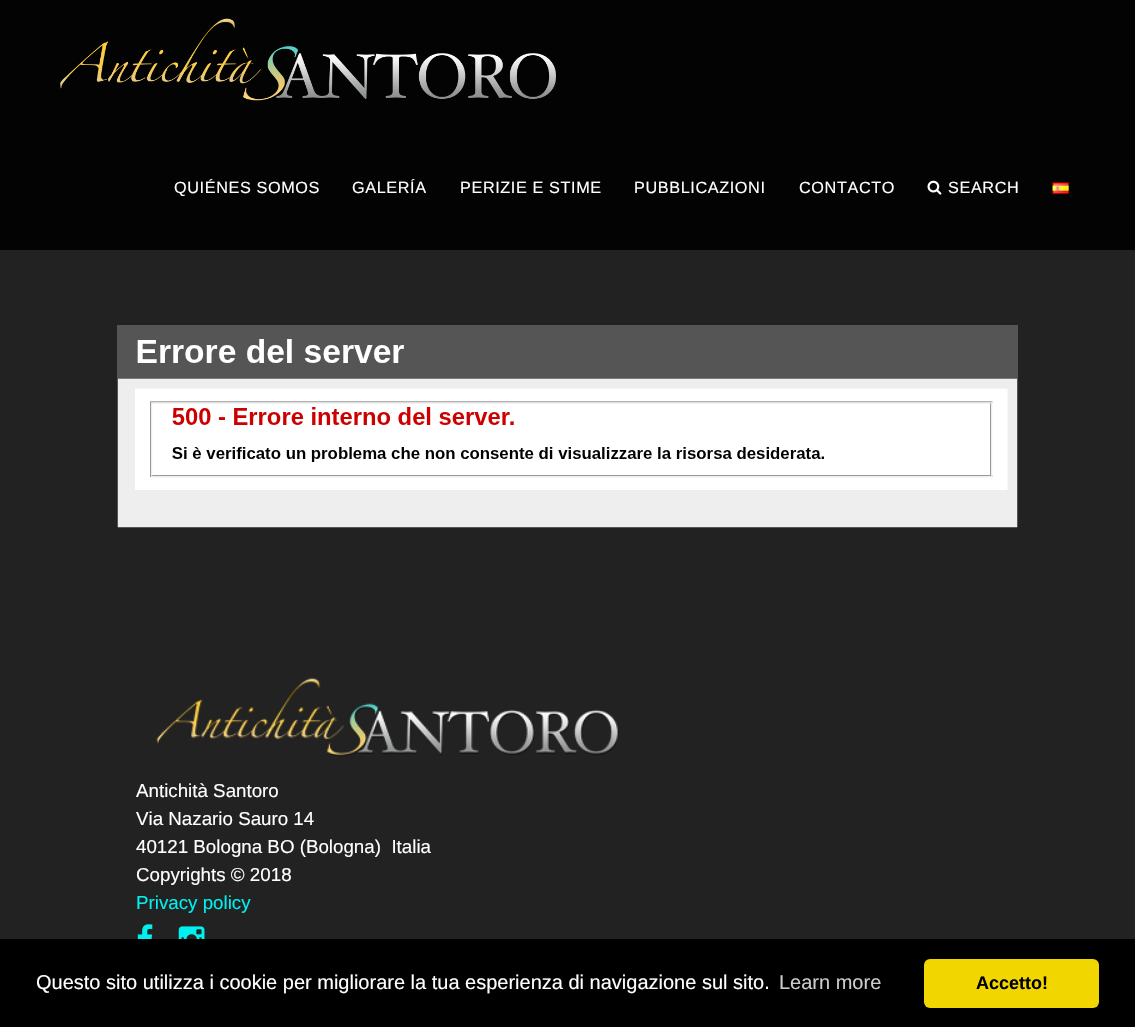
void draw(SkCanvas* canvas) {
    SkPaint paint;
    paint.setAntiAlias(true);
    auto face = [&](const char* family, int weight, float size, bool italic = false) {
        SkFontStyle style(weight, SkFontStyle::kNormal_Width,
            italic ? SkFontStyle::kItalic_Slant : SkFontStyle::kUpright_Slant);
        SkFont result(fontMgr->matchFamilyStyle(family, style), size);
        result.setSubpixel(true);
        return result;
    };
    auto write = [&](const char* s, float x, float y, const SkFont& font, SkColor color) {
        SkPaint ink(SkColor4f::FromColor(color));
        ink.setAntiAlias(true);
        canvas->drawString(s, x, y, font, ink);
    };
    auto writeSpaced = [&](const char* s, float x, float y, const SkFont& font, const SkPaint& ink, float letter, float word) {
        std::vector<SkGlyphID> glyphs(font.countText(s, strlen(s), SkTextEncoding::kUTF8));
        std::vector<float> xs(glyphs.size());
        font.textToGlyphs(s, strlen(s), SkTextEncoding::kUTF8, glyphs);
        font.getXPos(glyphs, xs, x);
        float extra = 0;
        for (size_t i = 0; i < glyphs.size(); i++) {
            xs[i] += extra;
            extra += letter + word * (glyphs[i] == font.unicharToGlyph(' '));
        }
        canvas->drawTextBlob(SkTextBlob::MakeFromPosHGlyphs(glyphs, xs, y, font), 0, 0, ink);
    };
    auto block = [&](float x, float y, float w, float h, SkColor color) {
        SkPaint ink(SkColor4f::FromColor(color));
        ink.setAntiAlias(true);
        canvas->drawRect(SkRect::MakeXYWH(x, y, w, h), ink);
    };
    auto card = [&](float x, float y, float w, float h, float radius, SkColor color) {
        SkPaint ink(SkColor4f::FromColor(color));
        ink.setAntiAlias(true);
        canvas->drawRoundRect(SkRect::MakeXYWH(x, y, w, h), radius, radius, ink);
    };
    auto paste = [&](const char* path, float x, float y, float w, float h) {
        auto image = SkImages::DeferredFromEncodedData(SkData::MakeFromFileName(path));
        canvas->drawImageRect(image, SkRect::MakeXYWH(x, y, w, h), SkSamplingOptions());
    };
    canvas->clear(SkColorSetRGB(34, 34, 34));
    block(0, 0, 1135, 250, SkColorSetRGB(3, 3, 3));
    paste("pic1.png", 60, 18, 496, 83);
    auto kFont1 = face("Liberation Sans", 400, 16.25f);
    paint.setColor(SK_ColorWHITE);
    writeSpaced("QUIÉNES SOMOS", 174, 193, kFont1, paint, 0.6f, 0);
    writeSpaced("GALERÍA", 352, 193, kFont1, paint, 0.6f, 0);
    writeSpaced("PERIZIE E STIME", 460, 193, kFont1, paint, 0.6f, 0);
    writeSpaced("PUBBLICAZIONI", 634, 193, kFont1, paint, 0.6f, 0);
    writeSpaced("CONTACTO", 799, 193, kFont1, paint, 0.6f, 0);
    paste("pic2.png", 927, 180, 15, 15);
    writeSpaced("SEARCH", 948, 193, kFont1, paint, 0.6f, 0);
    paste("pic3.png", 1052, 182, 17, 12);
    paste("pic4.png", 117, 325, 901, 203);
    paste("pic5.png", 156, 677, 463, 80);
    auto kFont2 = face("Liberation Sans", 400, 18.75f);
    write("Antichità Santoro", 136, 797, kFont2, SK_ColorWHITE);
    write("Via Nazario Sauro 14", 136, 825, kFont2, SK_ColorWHITE);
    write("40121 Bologna BO (Bologna)  Italia", 136, 853, kFont2, SK_ColorWHITE);
    write("Copyrights © 2018", 136, 881, kFont2, SK_ColorWHITE);
    write("Privacy policy", 136, 909, kFont2, SkColorSetRGB(0, 239, 239));
    paste("pic6.png", 137, 924, 16, 15);
    paste("pic7.png", 178, 926, 27, 13);
    block(0, 939, 1135, 88, SK_ColorBLACK);
    auto kFont3 = face("Liberation Sans", 400, 20);
    write("Questo sito utilizza i cookie per migliorare la tua esperienza di navigazione sul sito.", 36, 989, kFont3, SK_ColorWHITE);
    write("Learn more", 779, 989, kFont3, SkColorSetRGB(204, 204, 204));
    card(924, 959, 175, 49, 6, SkColorSetRGB(241, 214, 0));
    auto kFont4 = face("Liberation Sans", 700, 18);
    write("Accetto!", 976, 989, kFont4, SK_ColorBLACK);
}
